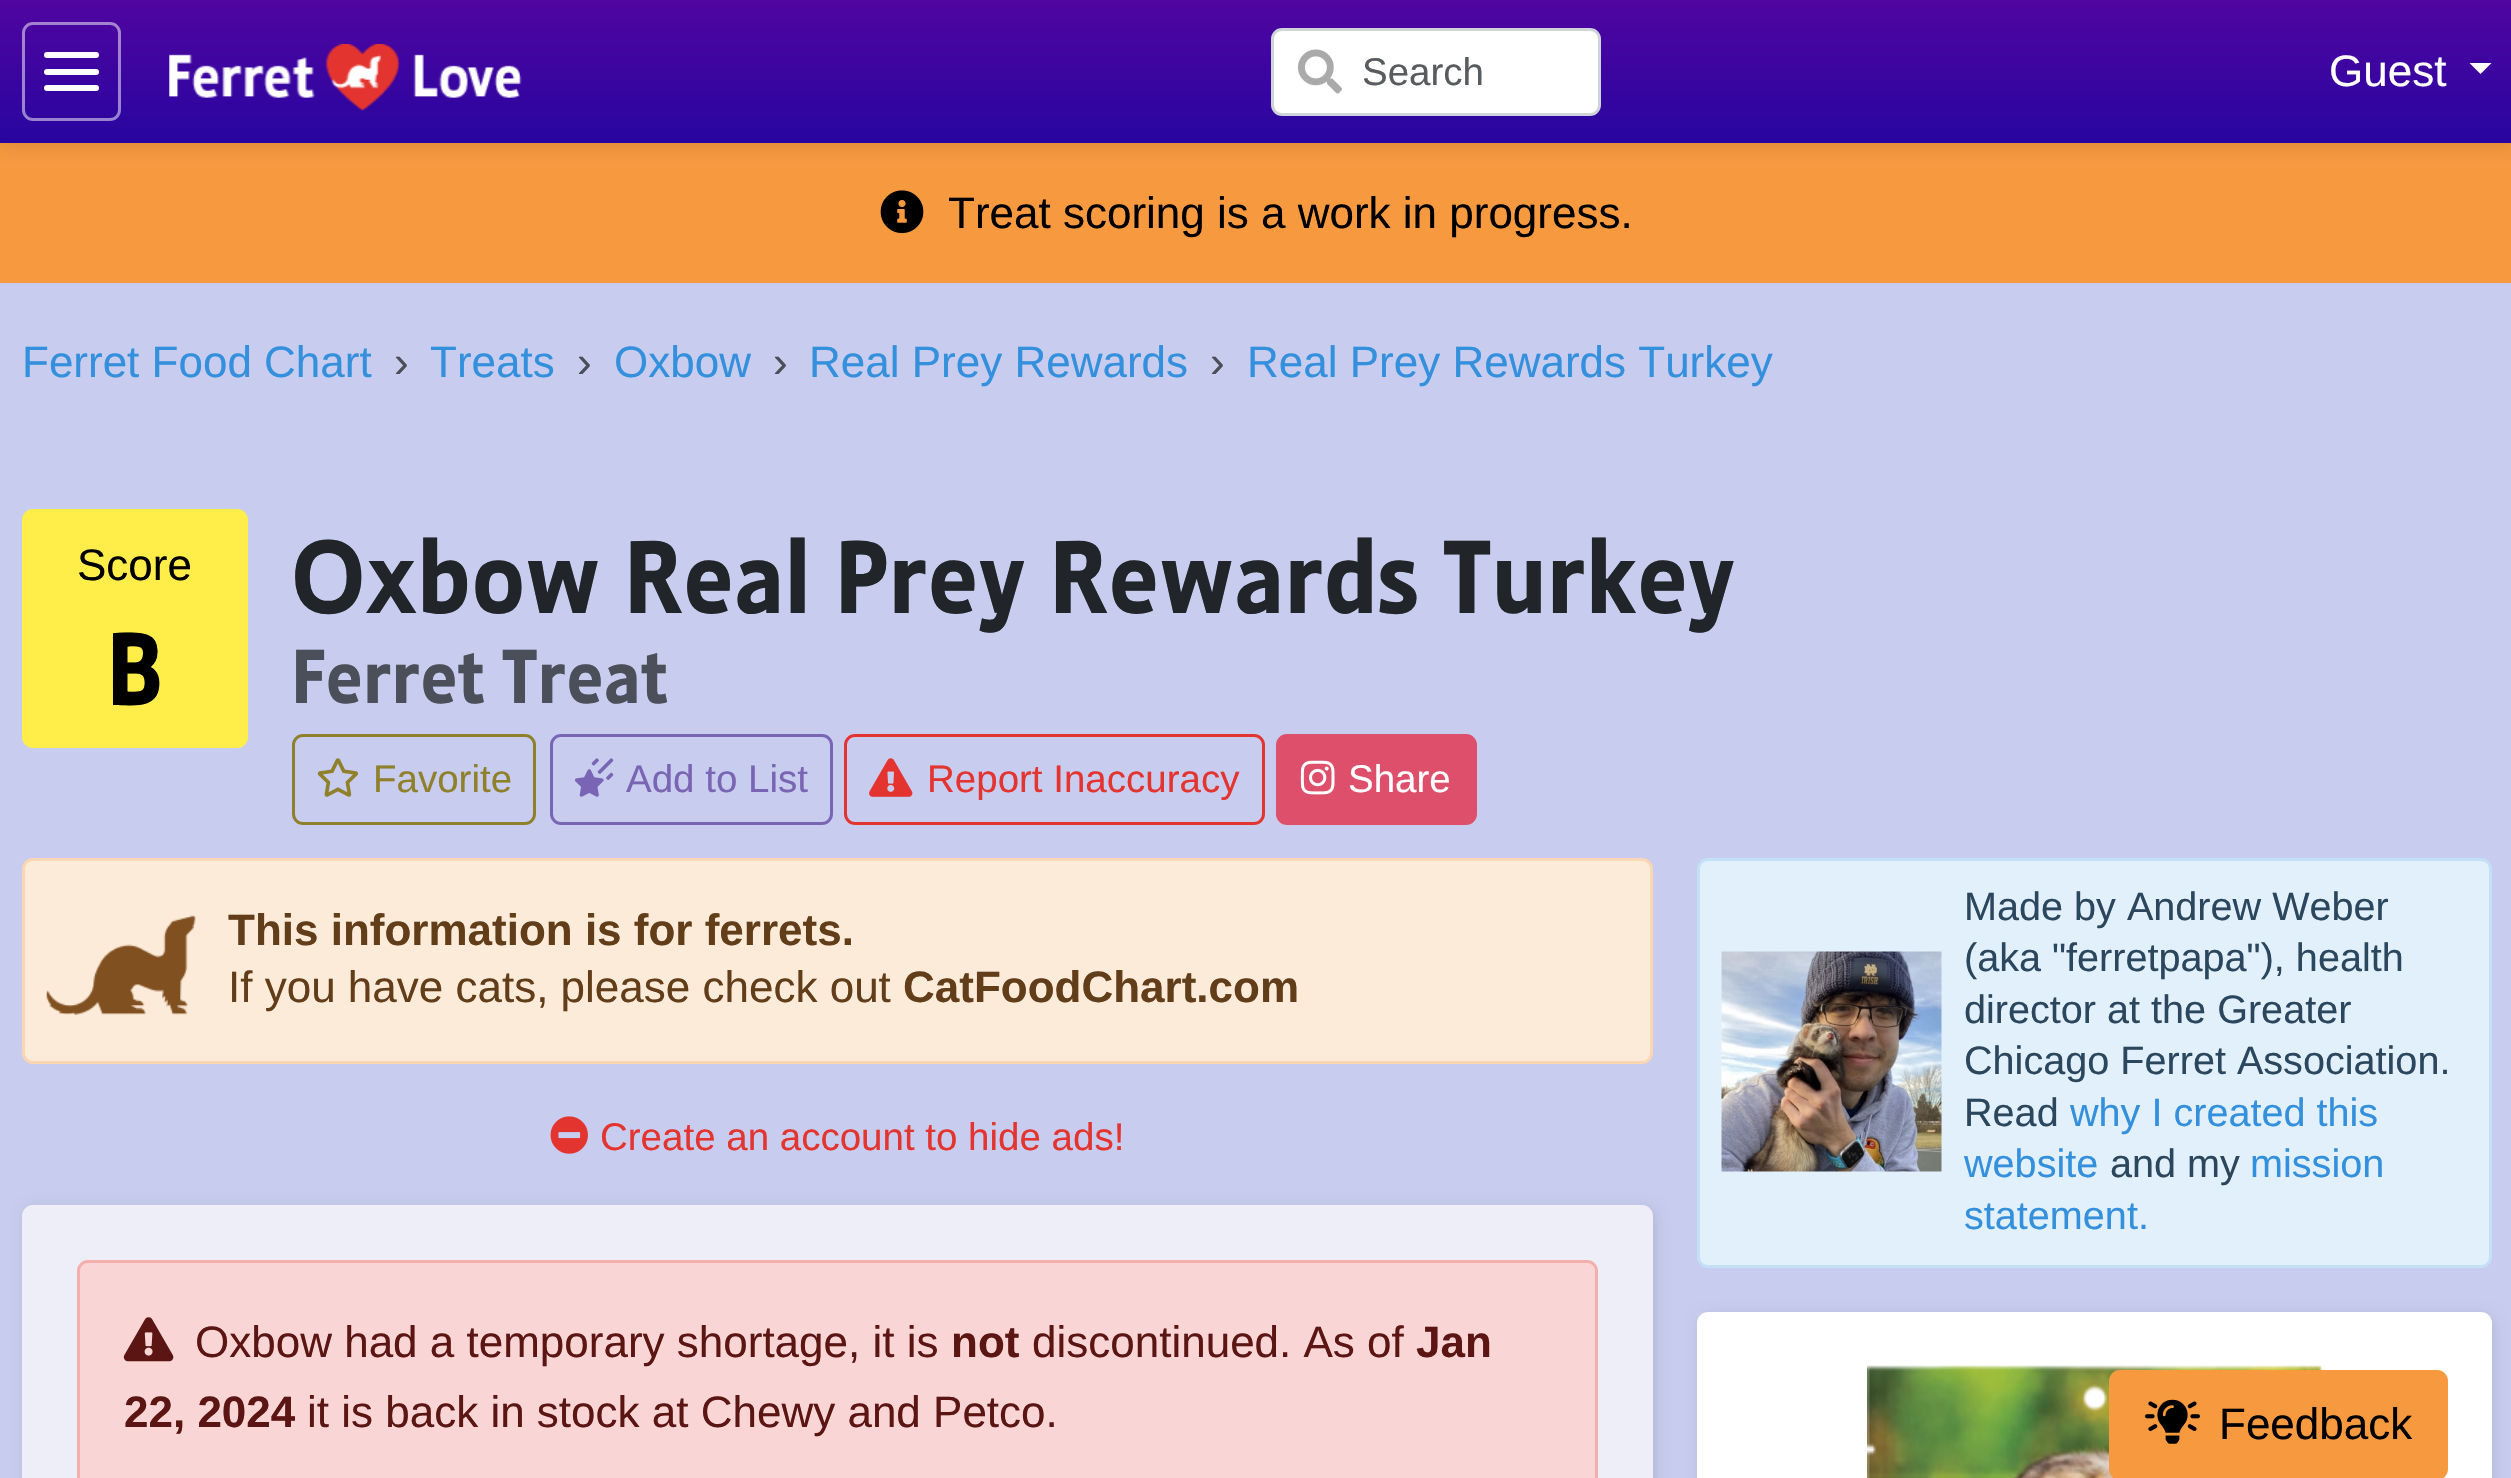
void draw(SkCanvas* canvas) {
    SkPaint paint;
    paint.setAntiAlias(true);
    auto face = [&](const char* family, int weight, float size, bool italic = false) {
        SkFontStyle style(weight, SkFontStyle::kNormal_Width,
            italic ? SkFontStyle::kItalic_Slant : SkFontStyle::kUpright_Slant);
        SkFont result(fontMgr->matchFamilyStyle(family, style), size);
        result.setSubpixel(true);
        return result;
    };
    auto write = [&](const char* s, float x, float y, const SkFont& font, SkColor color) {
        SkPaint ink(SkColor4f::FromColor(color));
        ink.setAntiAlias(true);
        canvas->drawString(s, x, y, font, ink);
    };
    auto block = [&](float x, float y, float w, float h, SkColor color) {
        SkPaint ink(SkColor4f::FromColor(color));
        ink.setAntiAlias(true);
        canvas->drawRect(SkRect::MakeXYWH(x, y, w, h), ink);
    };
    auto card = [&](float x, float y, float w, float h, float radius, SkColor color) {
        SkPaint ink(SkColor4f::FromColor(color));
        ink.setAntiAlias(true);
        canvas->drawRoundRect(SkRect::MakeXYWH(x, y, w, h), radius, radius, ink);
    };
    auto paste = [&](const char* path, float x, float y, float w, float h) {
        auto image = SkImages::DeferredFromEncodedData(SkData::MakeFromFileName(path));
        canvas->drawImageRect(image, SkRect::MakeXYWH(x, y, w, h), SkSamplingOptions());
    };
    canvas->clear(SkColorSetRGB(200, 204, 238));
    block(0, 143, 2511, 140, SkColorSetRGB(246, 153, 63));
    paint.setColor(SkColorSetARGB(18, 0, 0, 0));
    paint.setMaskFilter(SkMaskFilter::MakeBlur(kNormal_SkBlurStyle, 5.5f));
    canvas->drawRect(SkRect::MakeXYWH(0, 6, 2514, 143), paint);
    paint.setMaskFilter(nullptr);
    {
        const SkColor colors[] = {SkColorSetRGB(40, 5, 160), SkColorSetRGB(80, 5, 160)};
        const float stops[] = {0, 1};
        const SkPoint ends[] = {{1257, 143}, {1257, 0}};
        paint.setShader(SkGradientShader::MakeLinear(ends, colors, stops, 2, SkTileMode::kClamp));
        paint.setAlpha(255);
    }
    canvas->drawRect(SkRect::MakeXYWH(0, 0, 2511, 143), paint);
    paint.setStyle(SkPaint::kStroke_Style);
    paint.setStrokeWidth(3);
    paint.setShader(nullptr);
    paint.setColor(SkColorSetARGB(128, 255, 255, 255));
    canvas->drawRoundRect(SkRect::MakeXYWH(23.5f, 23.5f, 96, 96), 9.5f, 9.5f, paint);
    card(44, 52, 55, 6, 3, SK_ColorWHITE);
    card(44, 69, 55, 6, 3, SK_ColorWHITE);
    card(44, 85, 55, 6, 3, SK_ColorWHITE);
    paste("pic1.png", 169, 44, 353, 67);
    paint.setStyle(SkPaint::kFill_Style);
    paint.setColor(SK_ColorWHITE);
    canvas->drawRoundRect(SkRect::MakeXYWH(1272.5f, 29.5f, 327, 85), 9.5f, 9.5f, paint);
    paint.setStyle(SkPaint::kStroke_Style);
    paint.setColor(SkColorSetRGB(206, 212, 218));
    canvas->drawRoundRect(SkRect::MakeXYWH(1272.5f, 29.5f, 327, 85), 9.5f, 9.5f, paint);
    paste("pic2.png", 1298, 49, 44, 45);
    auto kFont1 = face("Liberation Sans", 400, 38.5f);
    write("Search", 1362, 85, kFont1, SkColorSetRGB(89, 92, 95));
    auto kFont2 = face("Liberation Sans", 400, 44);
    write("Guest", 2329, 86, kFont2, SK_ColorWHITE);
    paint.setStyle(SkPaint::kFill_Style);
    paint.setColor(SK_ColorWHITE);
    canvas->drawPath(SkPathBuilder().moveTo(2469.5f, 63).lineTo(2491.5f, 63).lineTo(2480.5f, 74).close().detach(), paint);
    write("Ferret Food Chart", 22, 377, kFont2, SkColorSetRGB(52, 144, 220));
    write("›", 394, 377, kFont2, SkColorSetRGB(75, 79, 90));
    write("Treats", 430, 377, kFont2, SkColorSetRGB(52, 144, 220));
    write("›", 577, 377, kFont2, SkColorSetRGB(75, 79, 90));
    write("Oxbow", 614, 377, kFont2, SkColorSetRGB(52, 144, 220));
    write("›", 773, 377, kFont2, SkColorSetRGB(75, 79, 90));
    write("Real Prey Rewards", 809, 377, kFont2, SkColorSetRGB(52, 144, 220));
    write("›", 1210, 377, kFont2, SkColorSetRGB(75, 79, 90));
    write("Real Prey Rewards Turkey", 1247, 377, kFont2, SkColorSetRGB(52, 144, 220));
    card(22, 509, 226, 239, 11, SkColorSetRGB(255, 237, 74));
    write("Score", 77, 580, kFont2, SK_ColorBLACK);
    auto kFont3 = face("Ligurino", 700, 98.25f);
    write("B", 106, 705, kFont3, SK_ColorBLACK);
    write("Oxbow Real Prey Rewards Turkey", 291, 613, kFont3, SkColorSetRGB(33, 37, 41));
    auto kFont4 = face("Ligurino", 700, 72.25f);
    write("Ferret Treat", 291, 703, kFont4, SkColorSetRGB(75, 79, 90));
    paint.setStyle(SkPaint::kStroke_Style);
    paint.setColor(SkColorSetRGB(143, 128, 44));
    canvas->drawRoundRect(SkRect::MakeXYWH(293.5f, 735.5f, 241, 88), 9.5f, 9.5f, paint);
    paste("pic3.png", 317, 758, 41, 39);
    write("Favorite", 373, 792, kFont1, SkColorSetRGB(143, 128, 44));
    paint.setColor(SkColorSetRGB(121, 101, 179));
    canvas->drawRoundRect(SkRect::MakeXYWH(551.5f, 735.5f, 280, 88), 9.5f, 9.5f, paint);
    paste("pic4.png", 574, 758, 40, 39);
    write("Add to List", 626, 792, kFont1, SkColorSetRGB(121, 101, 179));
    paint.setColor(SkColorSetRGB(227, 52, 47));
    canvas->drawRoundRect(SkRect::MakeXYWH(845.5f, 735.5f, 418, 88), 9.5f, 9.5f, paint);
    paste("pic5.png", 869, 758, 44, 39);
    write("Report Inaccuracy", 927, 792, kFont1, SkColorSetRGB(227, 52, 47));
    paint.setStyle(SkPaint::kFill_Style);
    paint.setColor(SkColorSetRGB(221, 79, 107));
    canvas->drawRoundRect(SkRect::MakeXYWH(1277.5f, 735.5f, 198, 88), 9.5f, 9.5f, paint);
    paint.setStyle(SkPaint::kStroke_Style);
    canvas->drawRoundRect(SkRect::MakeXYWH(1277.5f, 735.5f, 198, 88), 9.5f, 9.5f, paint);
    paste("pic6.png", 1300, 760, 35, 35);
    write("Share", 1348, 792, kFont1, SK_ColorWHITE);
    paint.setStyle(SkPaint::kFill_Style);
    paint.setColor(SkColorSetRGB(253, 235, 217));
    canvas->drawRoundRect(SkRect::MakeXYWH(23.5f, 859.5f, 1628, 203), 9.5f, 9.5f, paint);
    paint.setStyle(SkPaint::kStroke_Style);
    paint.setColor(SkColorSetRGB(251, 214, 178));
    canvas->drawRoundRect(SkRect::MakeXYWH(23.5f, 859.5f, 1628, 203), 9.5f, 9.5f, paint);
    paste("pic7.png", 46, 915, 150, 100);
    auto kFont5 = face("Liberation Sans", 700, 44);
    write("This information is for ferrets.", 228, 945, kFont5, SkColorSetRGB(98, 61, 25));
    write("If you have cats, please check out", 228, 1002, kFont2, SkColorSetRGB(98, 61, 25));
    write("CatFoodChart.com", 903, 1002, kFont5, SkColorSetRGB(98, 61, 25));
    paste("pic8.png", 550, 1116, 38, 38);
    write("Create an account to hide ads!", 600, 1150, kFont1, SkColorSetRGB(227, 52, 47));
    paint.setStyle(SkPaint::kFill_Style);
    paint.setColor(SkColorSetARGB(26, 0, 0, 0));
    paint.setMaskFilter(SkMaskFilter::MakeBlur(kNormal_SkBlurStyle, 7));
    canvas->drawRoundRect(SkRect::MakeXYWH(25, 1207, 1631, 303), 11, 11, paint);
    paint.setMaskFilter(nullptr);
    card(22, 1205, 1631, 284, 11, SkColorSetRGB(238, 238, 248));
    paint.setColor(SkColorSetRGB(249, 214, 213));
    canvas->drawRoundRect(SkRect::MakeXYWH(78.5f, 1261.5f, 1518, 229), 9.5f, 9.5f, paint);
    paint.setStyle(SkPaint::kStroke_Style);
    paint.setColor(SkColorSetRGB(244, 174, 172));
    canvas->drawRoundRect(SkRect::MakeXYWH(78.5f, 1261.5f, 1518, 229), 9.5f, 9.5f, paint);
    paste("pic9.png", 123, 1317, 51, 45);
    write("Oxbow had a temporary shortage, it is", 195, 1357, kFont2, SkColorSetRGB(91, 21, 19));
    write("not", 951, 1357, kFont5, SkColorSetRGB(91, 21, 19));
    write("discontinued. As of", 1032, 1357, kFont2, SkColorSetRGB(91, 21, 19));
    write("Jan", 1416, 1357, kFont5, SkColorSetRGB(91, 21, 19));
    write("22, 2024", 124, 1427, kFont5, SkColorSetRGB(91, 21, 19));
    write("it is back in stock at Chewy and Petco.", 307, 1427, kFont2, SkColorSetRGB(91, 21, 19));
    paint.setStyle(SkPaint::kFill_Style);
    paint.setColor(SkColorSetRGB(226, 240, 251));
    canvas->drawRoundRect(SkRect::MakeXYWH(1698.5f, 859.5f, 792, 407), 9.5f, 9.5f, paint);
    paint.setStyle(SkPaint::kStroke_Style);
    paint.setColor(SkColorSetRGB(196, 224, 247));
    canvas->drawRoundRect(SkRect::MakeXYWH(1698.5f, 859.5f, 792, 407), 9.5f, 9.5f, paint);
    paste("pic10.png", 1721, 951, 221, 221);
    auto kFont6 = face("Liberation Sans", 400, 39.6f);
    write("Made by Andrew Weber", 1964, 920, kFont6, SkColorSetRGB(43, 71, 94));
    write("(aka \"ferretpapa\"), health", 1964, 971, kFont6, SkColorSetRGB(43, 71, 94));
    write("director at the Greater", 1964, 1023, kFont6, SkColorSetRGB(43, 71, 94));
    write("Chicago Ferret Association.", 1964, 1074, kFont6, SkColorSetRGB(43, 71, 94));
    write("Read", 1964, 1126, kFont6, SkColorSetRGB(43, 71, 94));
    write("why I created this", 2070, 1126, kFont6, SkColorSetRGB(52, 144, 220));
    write("website", 1964, 1177, kFont6, SkColorSetRGB(52, 144, 220));
    write("and my", 2110, 1177, kFont6, SkColorSetRGB(43, 71, 94));
    write("mission", 2250, 1177, kFont6, SkColorSetRGB(52, 144, 220));
    write("statement.", 1964, 1229, kFont6, SkColorSetRGB(52, 144, 220));
    paint.setStyle(SkPaint::kFill_Style);
    paint.setColor(SkColorSetARGB(26, 0, 0, 0));
    paint.setMaskFilter(SkMaskFilter::MakeBlur(kNormal_SkBlurStyle, 7));
    canvas->drawRoundRect(SkRect::MakeXYWH(1700, 1315, 794, 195), 11, 11, paint);
    paint.setMaskFilter(nullptr);
    card(1697, 1312, 795, 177, 11, SK_ColorWHITE);
    paste("pic11.png", 1867, 1365, 455, 113);
    paste("pic12.png", 880, 190, 44, 44);
    write("Treat scoring is a work in progress.", 948, 228, kFont2, SK_ColorBLACK);
    paint.setColor(SkColorSetRGB(246, 153, 63));
    canvas->drawRoundRect(SkRect::MakeXYWH(2110.5f, 1371.5f, 336, 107), 9.5f, 9.5f, paint);
    paint.setStyle(SkPaint::kStroke_Style);
    canvas->drawRoundRect(SkRect::MakeXYWH(2110.5f, 1371.5f, 336, 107), 9.5f, 9.5f, paint);
    paste("pic13.png", 2145, 1399, 55, 45);
    write("Feedback", 2219, 1439, kFont2, SK_ColorBLACK);
}
